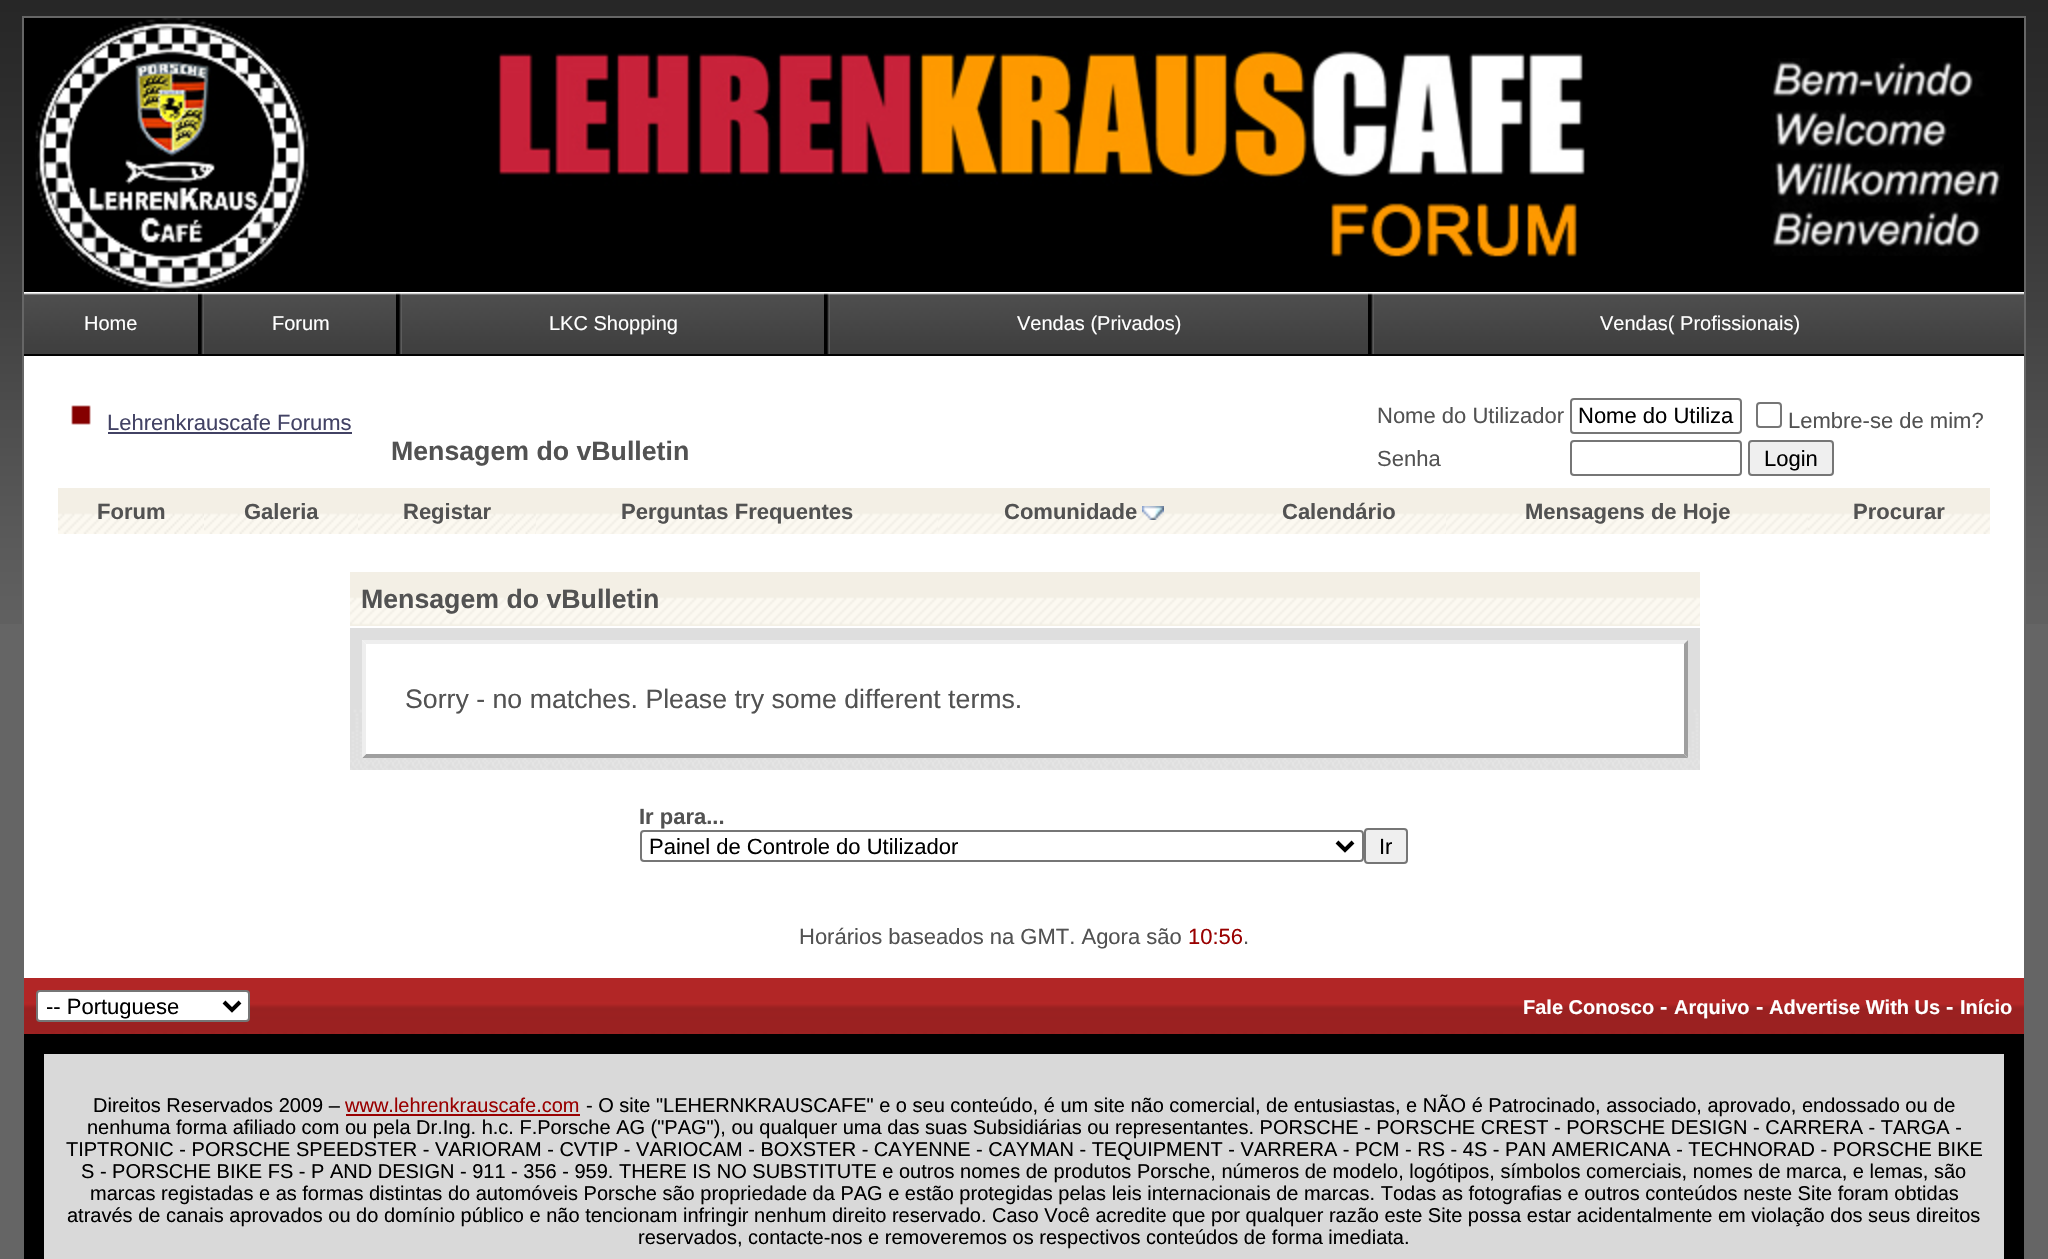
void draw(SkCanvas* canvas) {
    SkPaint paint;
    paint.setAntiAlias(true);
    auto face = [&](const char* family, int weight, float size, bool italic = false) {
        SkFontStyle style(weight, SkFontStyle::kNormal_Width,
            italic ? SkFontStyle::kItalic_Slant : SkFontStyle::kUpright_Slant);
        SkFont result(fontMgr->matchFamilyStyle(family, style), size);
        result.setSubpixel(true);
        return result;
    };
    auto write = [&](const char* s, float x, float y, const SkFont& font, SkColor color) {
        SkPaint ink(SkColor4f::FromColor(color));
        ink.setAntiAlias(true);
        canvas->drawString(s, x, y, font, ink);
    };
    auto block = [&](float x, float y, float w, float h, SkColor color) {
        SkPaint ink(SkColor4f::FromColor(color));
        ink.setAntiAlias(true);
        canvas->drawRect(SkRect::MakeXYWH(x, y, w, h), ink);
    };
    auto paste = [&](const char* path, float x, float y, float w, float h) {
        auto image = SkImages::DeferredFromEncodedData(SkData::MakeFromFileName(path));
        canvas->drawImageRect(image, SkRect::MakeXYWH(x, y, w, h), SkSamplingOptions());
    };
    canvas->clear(SkColorSetRGB(101, 101, 101));
    paste("pic1.png", 0, 0, 2048, 624);
    block(22, 16, 2004, 608, SkColorSetRGB(102, 102, 102));
    block(24, 18, 2000, 274, SK_ColorBLACK);
    paste("pic2.png", 35, 18, 274, 274);
    paste("pic3.png", 498, 51, 1087, 206);
    paste("pic4.png", 1770, 58, 234, 198);
    paste("pic5.png", 24, 292, 2000, 64);
    auto kFont1 = face("Liberation Sans", 400, 20);
    write("Home", 84, 330, kFont1, SK_ColorWHITE);
    paste("pic6.png", 198, 293, 6, 61);
    write("Forum", 272, 330, kFont1, SK_ColorWHITE);
    paste("pic6.png", 396, 293, 6, 61);
    write("LKC Shopping", 549, 330, kFont1, SK_ColorWHITE);
    paste("pic6.png", 824, 293, 6, 61);
    write("Vendas (Privados)", 1017, 330, kFont1, SK_ColorWHITE);
    paste("pic6.png", 1368, 293, 6, 61);
    write("Vendas( Profissionais)", 1600, 330, kFont1, SK_ColorWHITE);
    block(24, 356, 2000, 622, SK_ColorWHITE);
    paste("pic7.png", 71, 405, 20, 20);
    auto kFont2 = face("Liberation Sans", 400, 22);
    write("Lehrenkrauscafe Forums", 107, 430, kFont2, SkColorSetRGB(66, 66, 100));
    block(108, 432, 244, 2, SkColorSetRGB(66, 66, 100));
    auto kFont3 = face("Liberation Sans", 700, 26.7f);
    write("Mensagem do vBulletin", 391, 460, kFont3, SkColorSetRGB(82, 82, 82));
    write("Nome do Utilizador", 1377, 423, kFont2, SkColorSetRGB(82, 82, 82));
    paint.setStyle(SkPaint::kStroke_Style);
    paint.setStrokeWidth(2);
    paint.setColor(SkColorSetRGB(118, 118, 118));
    canvas->drawRoundRect(SkRect::MakeXYWH(1571, 399, 170, 34), 3, 3, paint);
    write("Nome do Utiliza", 1578, 423, kFont2, SK_ColorBLACK);
    canvas->drawRoundRect(SkRect::MakeXYWH(1757, 403, 24, 24), 3, 3, paint);
    write("Lembre-se de mim?", 1788, 428, kFont2, SkColorSetRGB(82, 82, 82));
    write("Senha", 1377, 466, kFont2, SkColorSetRGB(82, 82, 82));
    canvas->drawRoundRect(SkRect::MakeXYWH(1571, 441, 170, 34), 3, 3, paint);
    paint.setStyle(SkPaint::kFill_Style);
    paint.setColor(SkColorSetRGB(239, 239, 239));
    canvas->drawRoundRect(SkRect::MakeXYWH(1749, 441, 84, 34), 3, 3, paint);
    paint.setStyle(SkPaint::kStroke_Style);
    paint.setColor(SkColorSetRGB(118, 118, 118));
    canvas->drawRoundRect(SkRect::MakeXYWH(1749, 441, 84, 34), 3, 3, paint);
    write("Login", 1764, 466, kFont2, SK_ColorBLACK);
    paste("pic8.png", 58, 488, 146, 46);
    auto kFont4 = face("Liberation Sans", 700, 22);
    write("Forum", 97, 519, kFont4, SkColorSetRGB(82, 82, 82));
    paste("pic9.png", 204, 488, 154, 46);
    write("Galeria", 244, 519, kFont4, SkColorSetRGB(82, 82, 82));
    paste("pic10.png", 358, 488, 178, 46);
    write("Registar", 403, 519, kFont4, SkColorSetRGB(82, 82, 82));
    paste("pic11.png", 536, 488, 402, 46);
    write("Perguntas Frequentes", 621, 519, kFont4, SkColorSetRGB(82, 82, 82));
    paste("pic12.png", 938, 488, 292, 46);
    write("Comunidade", 1004, 519, kFont4, SkColorSetRGB(82, 82, 82));
    paste("pic13.png", 1142, 506, 22, 14);
    paste("pic14.png", 1230, 488, 216, 46);
    write("Calendário", 1282, 519, kFont4, SkColorSetRGB(82, 82, 82));
    paste("pic15.png", 1446, 488, 362, 46);
    write("Mensagens de Hoje", 1525, 519, kFont4, SkColorSetRGB(82, 82, 82));
    paste("pic16.png", 1808, 488, 182, 46);
    write("Procurar", 1853, 519, kFont4, SkColorSetRGB(82, 82, 82));
    paste("pic17.png", 350, 572, 1350, 54);
    write("Mensagem do vBulletin", 361, 608, kFont3, SkColorSetRGB(82, 82, 82));
    paste("pic18.png", 350, 628, 1350, 142);
    block(362, 640, 1326, 118, SK_ColorWHITE);
    paint.setStyle(SkPaint::kFill_Style);
    paint.setColor(SkColorSetRGB(238, 238, 238));
    canvas->drawPath(SkPathBuilder().moveTo(362, 640).lineTo(1688, 640).lineTo(1684, 644).lineTo(366, 644).close().detach(), paint);
    paint.setColor(SkColorSetRGB(159, 159, 159));
    canvas->drawPath(SkPathBuilder().moveTo(1688, 640).lineTo(1688, 758).lineTo(1684, 754).lineTo(1684, 644).close().detach(), paint);
    canvas->drawPath(SkPathBuilder().moveTo(1688, 758).lineTo(362, 758).lineTo(366, 754).lineTo(1684, 754).close().detach(), paint);
    paint.setColor(SkColorSetRGB(238, 238, 238));
    canvas->drawPath(SkPathBuilder().moveTo(362, 758).lineTo(362, 640).lineTo(366, 644).lineTo(366, 754).close().detach(), paint);
    auto kFont5 = face("Liberation Sans", 400, 26.7f);
    write("Sorry - no matches. Please try some different terms.", 405, 708, kFont5, SkColorSetRGB(82, 82, 82));
    write("Ir para...", 639, 824, kFont4, SkColorSetRGB(82, 82, 82));
    paint.setStyle(SkPaint::kStroke_Style);
    paint.setColor(SkColorSetRGB(118, 118, 118));
    canvas->drawRoundRect(SkRect::MakeXYWH(641, 831, 722, 30), 3, 3, paint);
    paint.setStrokeWidth(4);
    paint.setColor(SK_ColorBLACK);
    canvas->drawPath(SkPathBuilder().moveTo(1337, 842).lineTo(1345, 850).lineTo(1353, 842).detach(), paint);
    write("Painel de Controle do Utilizador", 649, 854, kFont2, SK_ColorBLACK);
    paint.setStyle(SkPaint::kFill_Style);
    paint.setColor(SkColorSetRGB(239, 239, 239));
    canvas->drawRoundRect(SkRect::MakeXYWH(1365, 829, 42, 34), 3, 3, paint);
    paint.setStyle(SkPaint::kStroke_Style);
    paint.setStrokeWidth(2);
    paint.setColor(SkColorSetRGB(118, 118, 118));
    canvas->drawRoundRect(SkRect::MakeXYWH(1365, 829, 42, 34), 3, 3, paint);
    write("Ir", 1379, 854, kFont2, SK_ColorBLACK);
    write("Horários baseados na GMT. Agora são", 799, 944, kFont2, SkColorSetRGB(82, 82, 82));
    write("10:56", 1188, 944, kFont2, SkColorSetRGB(153, 0, 0));
    write(".", 1243, 944, kFont2, SkColorSetRGB(82, 82, 82));
    paste("pic19.png", 24, 978, 238, 56);
    paint.setStyle(SkPaint::kFill_Style);
    paint.setColor(SK_ColorWHITE);
    canvas->drawRoundRect(SkRect::MakeXYWH(37, 991, 212, 30), 3, 3, paint);
    paint.setStyle(SkPaint::kStroke_Style);
    paint.setColor(SkColorSetRGB(118, 118, 118));
    canvas->drawRoundRect(SkRect::MakeXYWH(37, 991, 212, 30), 3, 3, paint);
    paint.setStrokeWidth(4);
    paint.setColor(SK_ColorBLACK);
    canvas->drawPath(SkPathBuilder().moveTo(224, 1002).lineTo(232, 1010).lineTo(240, 1002).detach(), paint);
    write("-- Portuguese", 46, 1014, kFont2, SK_ColorBLACK);
    paste("pic20.png", 262, 978, 1762, 56);
    auto kFont6 = face("Liberation Sans", 700, 20);
    write("Fale Conosco", 1523, 1014, kFont6, SK_ColorWHITE);
    write("-", 1660, 1014, kFont4, SK_ColorWHITE);
    write("Arquivo", 1674, 1014, kFont6, SK_ColorWHITE);
    write("-", 1756, 1014, kFont4, SK_ColorWHITE);
    write("Advertise With Us", 1769, 1014, kFont6, SK_ColorWHITE);
    write("-", 1946, 1014, kFont4, SK_ColorWHITE);
    write("Início", 1960, 1014, kFont6, SK_ColorWHITE);
    block(24, 1034, 2000, 225, SK_ColorBLACK);
    block(44, 1054, 1960, 205, SkColorSetRGB(217, 217, 217));
    write("Direitos Reservados 2009 –", 93, 1112, kFont1, SK_ColorBLACK);
    write("www.lehrenkrauscafe.com", 345, 1112, kFont1, SkColorSetRGB(153, 0, 0));
    block(346, 1114, 234, 2, SkColorSetRGB(153, 0, 0));
    write("- O site \"LEHERNKRAUSCAFE\" e o seu conteúdo, é um site não comercial, de entusiastas, e NÃO é Patrocinado, associado, aprovado, endossado ou de", 586, 1112, kFont1, SK_ColorBLACK);
    write("nenhuma forma afiliado com ou pela Dr.Ing. h.c. F.Porsche AG (\"PAG\"), ou qualquer uma das suas Subsidiárias ou representantes. PORSCHE - PORSCHE CREST - PORSCHE DESIGN - CARRERA - TARGA -", 87, 1134, kFont1, SK_ColorBLACK);
    write("TIPTRONIC - PORSCHE SPEEDSTER - VARIORAM - CVTIP - VARIOCAM - BOXSTER - CAYENNE - CAYMAN - TEQUIPMENT - VARRERA - PCM - RS - 4S - PAN AMERICANA - TECHNORAD - PORSCHE BIKE", 66, 1156, kFont1, SK_ColorBLACK);
    write("S - PORSCHE BIKE FS - P AND DESIGN - 911 - 356 - 959. THERE IS NO SUBSTITUTE e outros nomes de produtos Porsche, números de modelo, logótipos, símbolos comerciais, nomes de marca, e lemas, são", 81, 1178, kFont1, SK_ColorBLACK);
    write("marcas registadas e as formas distintas do automóveis Porsche são propriedade da PAG e estão protegidas pelas leis internacionais de marcas. Todas as fotografias e outros conteúdos neste Site foram obtidas", 90, 1200, kFont1, SK_ColorBLACK);
    write("através de canais aprovados ou do domínio público e não tencionam infringir nenhum direito reservado. Caso Você acredite que por qualquer razão este Site possa estar acidentalmente em violação dos seus direitos", 67, 1222, kFont1, SK_ColorBLACK);
    write("reservados, contacte-nos e removeremos os respectivos conteúdos de forma imediata.", 638, 1244, kFont1, SK_ColorBLACK);
}
